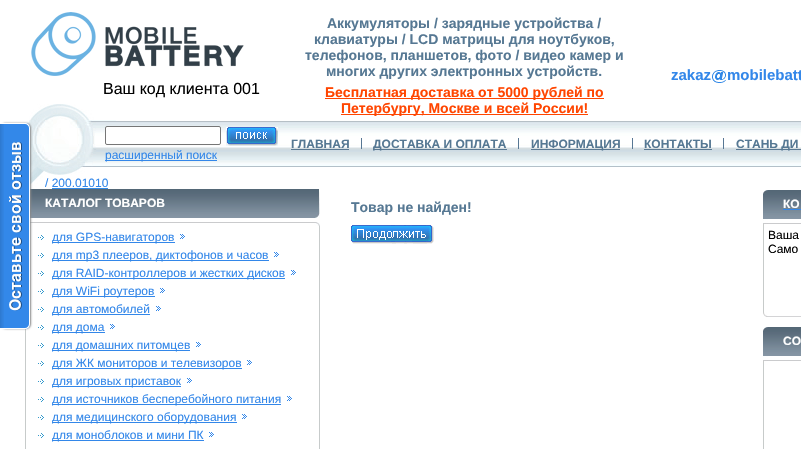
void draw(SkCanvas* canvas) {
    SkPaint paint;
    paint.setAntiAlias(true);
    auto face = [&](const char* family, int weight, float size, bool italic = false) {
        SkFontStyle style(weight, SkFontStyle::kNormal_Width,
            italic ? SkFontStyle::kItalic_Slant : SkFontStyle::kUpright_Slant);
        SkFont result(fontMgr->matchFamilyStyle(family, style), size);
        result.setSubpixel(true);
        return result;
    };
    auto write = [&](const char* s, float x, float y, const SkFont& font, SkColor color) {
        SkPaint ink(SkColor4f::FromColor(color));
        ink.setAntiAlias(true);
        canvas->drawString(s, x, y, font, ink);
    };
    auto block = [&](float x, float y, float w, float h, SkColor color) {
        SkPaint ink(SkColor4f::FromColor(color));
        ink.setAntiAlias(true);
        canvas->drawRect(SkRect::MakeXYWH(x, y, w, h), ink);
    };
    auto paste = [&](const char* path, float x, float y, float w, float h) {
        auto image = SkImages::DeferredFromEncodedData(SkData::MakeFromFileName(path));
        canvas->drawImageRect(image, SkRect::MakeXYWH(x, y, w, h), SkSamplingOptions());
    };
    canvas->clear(SK_ColorWHITE);
    paste("pic4.png", 29, 104, 87, 17);
    paste("pic9.png", 5, 121, 91, 68);
    paste("pic11.png", 30, 189, 7, 29);
    block(30, 222, 284, 1, SkColorSetRGB(202, 203, 205));
    block(25, 328, 1, 121, SkColorSetRGB(199, 203, 202));
    paint.setColor(SkColorSetRGB(136, 136, 136));
    paint.setMaskFilter(SkMaskFilter::MakeBlur(kNormal_SkBlurStyle, 1));
    canvas->drawRoundRect(SkRect::MakeXYWH(1, 123, 30, 206), 5, 5, paint);
    paint.setMaskFilter(nullptr);
    paint.setColor(SkColorSetRGB(51, 136, 233));
    canvas->drawPath(SkPathBuilder().moveTo(0, 123).lineTo(25, 123).cubicTo(28, 123, 30, 125, 30, 128).lineTo(30, 324).cubicTo(30, 327, 28, 329, 25, 329).lineTo(0, 329).close().detach(), paint);
    paste("pic1.png", 0, 124, 4, 204);
    paint.setColor(SK_ColorWHITE);
    canvas->drawPath(SkPathBuilder(SkPathFillType::kEvenOdd).moveTo(0, 123).lineTo(25, 123).cubicTo(28, 123, 30, 125, 30, 128).lineTo(30, 324).cubicTo(30, 327, 28, 329, 25, 329).lineTo(0, 329).close().moveTo(0, 124).lineTo(25, 124).cubicTo(27, 124, 29, 126, 29, 128).lineTo(29, 324).cubicTo(29, 326, 27, 328, 25, 328).lineTo(0, 328).close().detach(), paint);
    paste("pic2.png", 9, 142, 13, 169);
    auto kFont1 = face("Liberation Sans", 700, 14);
    write("Аккумуляторы / зарядные устройства /", 327, 28, kFont1, SkColorSetRGB(86, 120, 147));
    write("клавиатуры / LCD матрицы для ноутбуков,", 314, 44, kFont1, SkColorSetRGB(86, 120, 147));
    write("телефонов, планшетов, фото / видео камер и", 305, 60, kFont1, SkColorSetRGB(86, 120, 147));
    write("многих других электронных устройств.", 326, 76, kFont1, SkColorSetRGB(86, 120, 147));
    block(325, 98, 279, 1, SkColorSetRGB(255, 69, 0));
    write("Бесплатная доставка от 5000 рублей по", 325, 97, kFont1, SkColorSetRGB(255, 69, 0));
    block(341, 114, 247, 1, SkColorSetRGB(255, 69, 0));
    write("Петербургу, Москве и всей России!", 341, 113, kFont1, SkColorSetRGB(255, 69, 0));
    auto kFont2 = face("Liberation Sans", 700, 15);
    write("zakaz", 671, 80, kFont2, SkColorSetRGB(51, 135, 233));
    paste("pic3.png", 712, 70, 14, 13);
    write("mobilebatt", 727, 80, kFont2, SkColorSetRGB(51, 135, 233));
    paste("pic5.png", 31, 12, 213, 64);
    auto kFont3 = face("Liberation Sans", 400, 16);
    write("Ваш код клиента 001", 103, 94, kFont3, SK_ColorBLACK);
    paste("pic6.png", 285, 121, 516, 46);
    auto kFont4 = face("Liberation Sans", 700, 12);
    write("ГЛАВНАЯ", 291, 148, kFont4, SkColorSetRGB(86, 120, 147));
    block(291, 149, 58, 1, SkColorSetRGB(90, 120, 146));
    paste("pic7.png", 361, 138, 1, 11);
    block(373, 149, 134, 1, SkColorSetRGB(90, 120, 146));
    write("ДОСТАВКА И ОПЛАТА", 373, 148, kFont4, SkColorSetRGB(86, 120, 147));
    paste("pic7.png", 518, 138, 1, 11);
    block(531, 149, 89, 1, SkColorSetRGB(90, 120, 146));
    write("ИНФОРМАЦИЯ", 531, 148, kFont4, SkColorSetRGB(86, 120, 147));
    paste("pic7.png", 632, 138, 1, 11);
    write("КОНТАКТЫ", 644, 148, kFont4, SkColorSetRGB(86, 120, 147));
    block(644, 149, 68, 1, SkColorSetRGB(90, 120, 146));
    paste("pic7.png", 723, 138, 1, 11);
    block(736, 149, 65, 1, SkColorSetRGB(90, 120, 146));
    write("СТАНЬ ДИ", 736, 148, kFont4, SkColorSetRGB(86, 120, 147));
    paste("pic8.png", 96, 121, 189, 46);
    canvas->drawRoundRect(SkRect::MakeXYWH(105.5f, 126.5f, 115, 18), 1.5f, 1.5f, paint);
    paint.setStyle(SkPaint::kStroke_Style);
    paint.setStrokeWidth(1);
    paint.setColor(SkColorSetRGB(118, 118, 118));
    canvas->drawRoundRect(SkRect::MakeXYWH(105.5f, 126.5f, 115, 18), 1.5f, 1.5f, paint);
    paste("pic10.png", 226, 127, 52, 19);
    block(105, 160, 112, 1, SkColorSetRGB(51, 135, 233));
    auto kFont5 = face("Liberation Sans", 400, 12);
    write("расширенный поиск", 105, 159, kFont5, SkColorSetRGB(51, 135, 233));
    write("/ 200.01010", 45, 187, kFont5, SkColorSetRGB(51, 135, 233));
    block(52, 188, 56, 1, SkColorSetRGB(49, 138, 232));
    paste("pic12.png", 37, 189, 271, 29);
    write("КАТАЛОГ ТОВАРОВ", 45, 207, kFont4, SK_ColorWHITE);
    paste("pic11.png", 308, 189, 7, 29);
    paste("pic13.png", 315, 189, 5, 29);
    paste("pic14.png", 314, 222, 6, 5);
    paste("pic15.png", 38, 235, 6, 5);
    block(52, 242, 123, 1, SkColorSetRGB(51, 135, 233));
    write("для GPS-навигаторов", 52, 241, kFont5, SkColorSetRGB(51, 135, 233));
    paste("pic16.png", 180, 234, 5, 5);
    paste("pic15.png", 38, 253, 6, 5);
    block(52, 260, 217, 1, SkColorSetRGB(51, 135, 233));
    write("для mp3 плееров, диктофонов и часов", 52, 259, kFont5, SkColorSetRGB(51, 135, 233));
    paste("pic16.png", 274, 252, 5, 5);
    paste("pic15.png", 38, 271, 6, 5);
    block(52, 278, 233, 1, SkColorSetRGB(51, 135, 233));
    write("для RAID-контроллеров и жестких дисков", 52, 277, kFont5, SkColorSetRGB(51, 135, 233));
    paste("pic16.png", 291, 270, 5, 5);
    paste("pic15.png", 38, 289, 6, 5);
    block(52, 296, 103, 1, SkColorSetRGB(51, 135, 233));
    write("для WiFi роутеров", 52, 295, kFont5, SkColorSetRGB(51, 135, 233));
    paste("pic16.png", 160, 288, 5, 5);
    paste("pic15.png", 38, 307, 6, 5);
    block(52, 314, 98, 1, SkColorSetRGB(51, 135, 233));
    write("для автомобилей", 52, 313, kFont5, SkColorSetRGB(51, 135, 233));
    paste("pic16.png", 156, 306, 5, 5);
    paste("pic15.png", 38, 325, 6, 5);
    block(52, 332, 53, 1, SkColorSetRGB(51, 135, 233));
    write("для дома", 52, 331, kFont5, SkColorSetRGB(51, 135, 233));
    paste("pic16.png", 110, 324, 5, 5);
    paste("pic15.png", 38, 343, 6, 5);
    block(52, 350, 138, 1, SkColorSetRGB(51, 135, 233));
    write("для домашних питомцев", 52, 349, kFont5, SkColorSetRGB(51, 135, 233));
    paste("pic16.png", 196, 342, 5, 5);
    paste("pic15.png", 38, 361, 6, 5);
    block(52, 368, 190, 1, SkColorSetRGB(51, 135, 233));
    write("для ЖК мониторов и телевизоров", 52, 367, kFont5, SkColorSetRGB(51, 135, 233));
    paste("pic16.png", 247, 360, 5, 5);
    paste("pic15.png", 38, 379, 6, 5);
    block(52, 386, 129, 1, SkColorSetRGB(51, 135, 233));
    write("для игровых приставок", 52, 385, kFont5, SkColorSetRGB(51, 135, 233));
    paste("pic16.png", 187, 378, 5, 5);
    paste("pic15.png", 38, 397, 6, 5);
    block(52, 404, 229, 1, SkColorSetRGB(51, 135, 233));
    write("для источников бесперебойного питания", 52, 403, kFont5, SkColorSetRGB(51, 135, 233));
    paste("pic16.png", 287, 396, 5, 5);
    paste("pic15.png", 38, 415, 6, 5);
    block(52, 422, 185, 1, SkColorSetRGB(51, 135, 233));
    write("для медицинского оборудования", 52, 421, kFont5, SkColorSetRGB(51, 135, 233));
    paste("pic16.png", 242, 414, 5, 5);
    paste("pic15.png", 38, 433, 6, 5);
    block(52, 440, 152, 1, SkColorSetRGB(51, 135, 233));
    write("для моноблоков и мини ПК", 52, 439, kFont5, SkColorSetRGB(51, 135, 233));
    paste("pic16.png", 209, 432, 5, 5);
    block(319, 227, 1, 222, SkColorSetRGB(199, 203, 203));
    write("Товар не найден!", 351, 212, kFont1, SkColorSetRGB(86, 120, 147));
    paste("pic17.png", 351, 225, 83, 19);
    paste("pic18.png", 763, 190, 12, 29);
    paste("pic19.png", 763, 190, 5, 4);
    paste("pic20.png", 775, 190, 26, 29);
    write("КО", 783, 208, kFont4, SK_ColorWHITE);
    block(783, 209, 18, 1, SkColorSetRGB(51, 135, 233));
    paste("pic21.png", 763, 219, 5, 9);
    block(768, 223, 33, 1, SkColorSetRGB(202, 203, 205));
    block(763, 228, 1, 84, SkColorSetRGB(199, 203, 202));
    write("Ваша", 768, 239, kFont5, SK_ColorBLACK);
    write("Само", 768, 253, kFont5, SK_ColorBLACK);
    paste("pic22.png", 763, 312, 5, 5);
    block(768, 316, 33, 1, SkColorSetRGB(212, 212, 214));
    paste("pic18.png", 763, 327, 12, 29);
    paste("pic19.png", 763, 327, 5, 4);
    paste("pic20.png", 775, 327, 26, 29);
    write("СО", 783, 345, kFont4, SK_ColorWHITE);
    paste("pic21.png", 763, 356, 5, 9);
    block(768, 360, 33, 1, SkColorSetRGB(202, 203, 205));
    block(763, 365, 1, 84, SkColorSetRGB(199, 203, 202));
}
